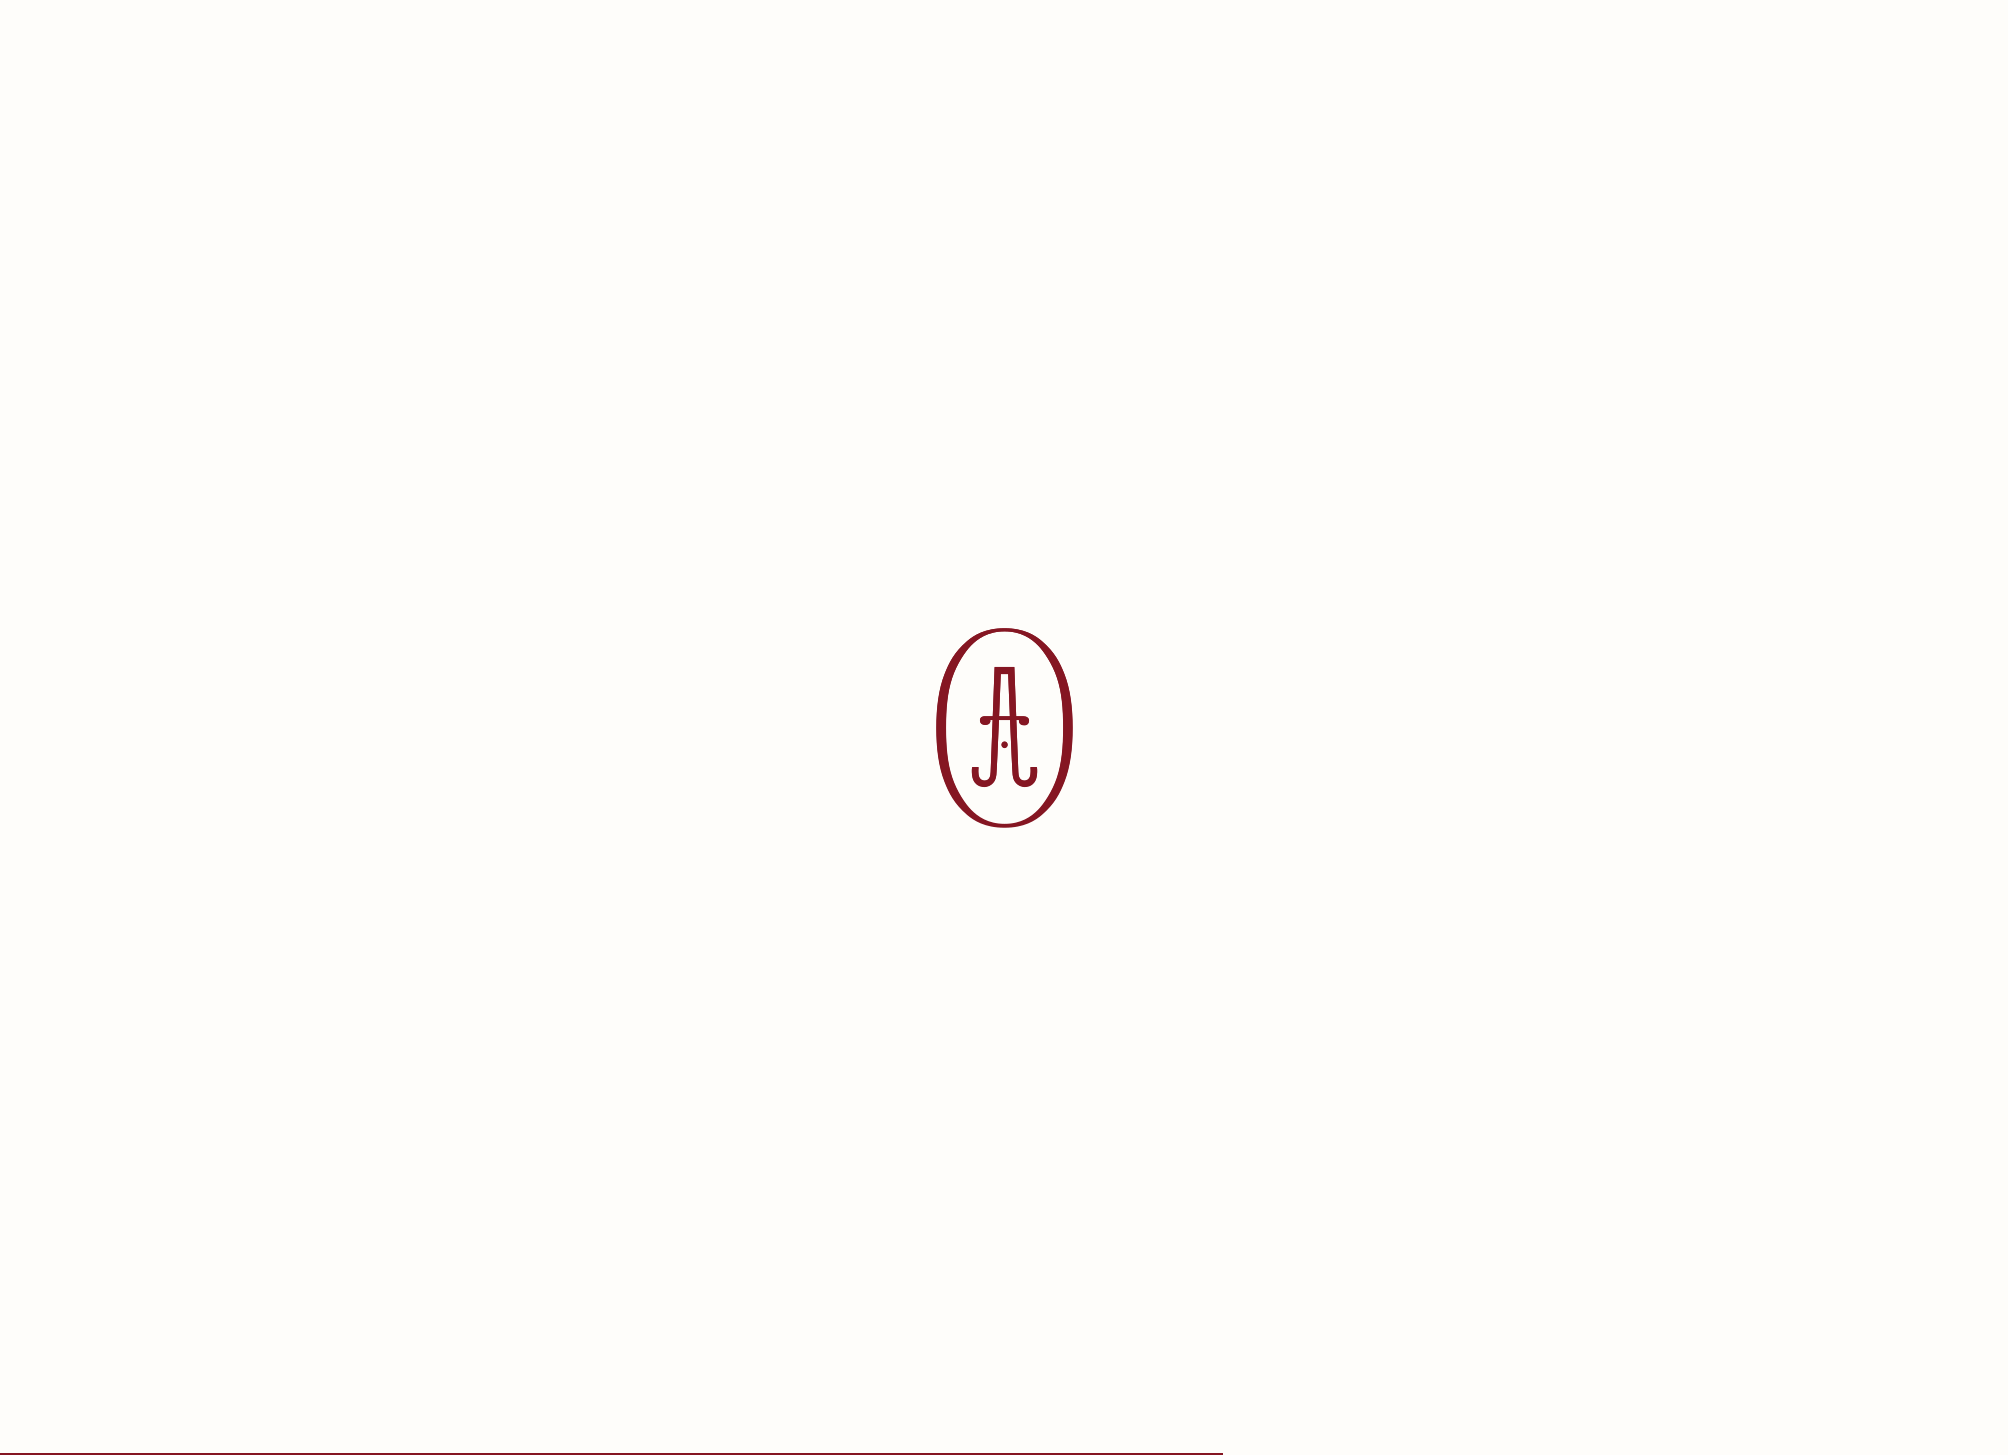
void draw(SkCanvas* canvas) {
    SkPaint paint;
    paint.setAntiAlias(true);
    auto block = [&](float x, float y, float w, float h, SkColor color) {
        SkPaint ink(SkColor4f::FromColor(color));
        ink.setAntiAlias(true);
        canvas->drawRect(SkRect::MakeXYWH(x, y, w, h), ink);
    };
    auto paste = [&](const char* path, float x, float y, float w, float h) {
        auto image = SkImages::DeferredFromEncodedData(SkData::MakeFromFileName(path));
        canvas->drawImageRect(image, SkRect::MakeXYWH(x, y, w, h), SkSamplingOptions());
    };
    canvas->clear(SkColorSetRGB(254, 253, 250));
    paste("pic1.png", 936, 628, 137, 199);
    paste("pic2.png", 936, 628, 137, 200);
    block(0, 1453, 1223, 2, SkColorSetRGB(133, 22, 34));
}
